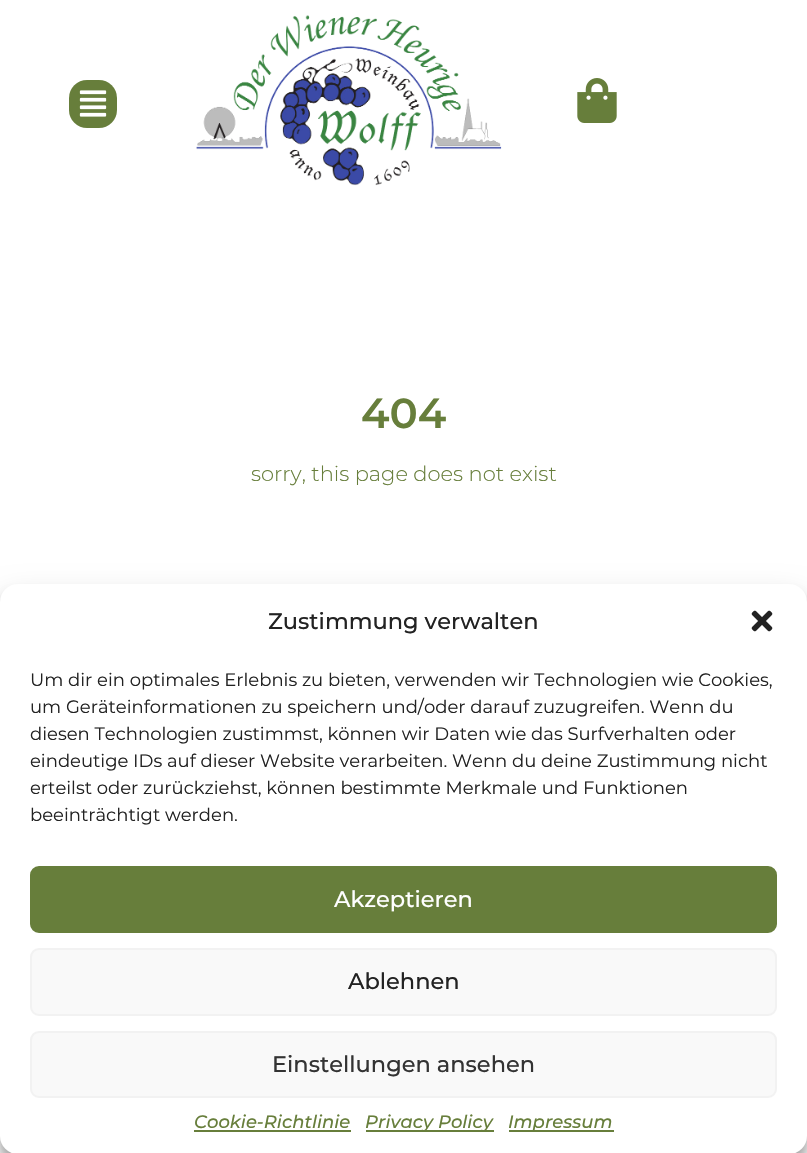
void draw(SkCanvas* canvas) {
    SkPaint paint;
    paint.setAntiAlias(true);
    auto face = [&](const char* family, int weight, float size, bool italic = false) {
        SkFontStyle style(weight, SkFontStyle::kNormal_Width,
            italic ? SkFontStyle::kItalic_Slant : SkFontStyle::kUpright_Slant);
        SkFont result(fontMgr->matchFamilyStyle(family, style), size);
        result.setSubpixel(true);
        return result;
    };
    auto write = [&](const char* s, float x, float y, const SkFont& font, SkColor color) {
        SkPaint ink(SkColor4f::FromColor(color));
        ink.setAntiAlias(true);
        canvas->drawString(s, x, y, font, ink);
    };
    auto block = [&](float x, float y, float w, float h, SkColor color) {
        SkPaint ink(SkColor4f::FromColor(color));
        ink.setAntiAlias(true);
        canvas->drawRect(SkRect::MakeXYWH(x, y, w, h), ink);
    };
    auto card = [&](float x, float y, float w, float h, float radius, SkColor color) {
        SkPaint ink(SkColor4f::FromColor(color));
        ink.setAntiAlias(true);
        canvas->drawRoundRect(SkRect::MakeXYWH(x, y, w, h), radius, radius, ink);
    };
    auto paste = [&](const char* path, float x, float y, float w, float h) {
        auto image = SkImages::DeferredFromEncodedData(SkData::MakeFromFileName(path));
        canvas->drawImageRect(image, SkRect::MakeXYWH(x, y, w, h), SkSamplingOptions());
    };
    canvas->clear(SK_ColorWHITE);
    card(69, 80, 48, 48, 18, SkColorSetRGB(103, 126, 59));
    paste("pic1.png", 79, 90, 28, 27);
    paste("pic2.png", 196, 15, 306, 171);
    paste("pic3.png", 577, 78, 40, 45);
    auto kFont1 = face("Montserrat", 600, 42);
    write("404", 361, 428, kFont1, SkColorSetRGB(103, 126, 59));
    auto kFont2 = face("Montserrat", 300, 21);
    write("sorry, this page does not exist", 251, 481, kFont2, SkColorSetRGB(103, 126, 59));
    paint.setColor(SkColorSetARGB(59, 0, 0, 0));
    paint.setMaskFilter(SkMaskFilter::MakeBlur(kNormal_SkBlurStyle, 4.5f));
    canvas->drawRoundRect(SkRect::MakeXYWH(0, 593, 807, 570), 18, 18, paint);
    paint.setMaskFilter(nullptr);
    paint.setColor(SkColorSetARGB(48, 0, 0, 0));
    paint.setMaskFilter(SkMaskFilter::MakeBlur(kNormal_SkBlurStyle, 15));
    canvas->drawRoundRect(SkRect::MakeXYWH(0, 599, 807, 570), 18, 18, paint);
    paint.setMaskFilter(nullptr);
    card(0, 584, 807, 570, 18, SK_ColorWHITE);
    auto kFont3 = face("Montserrat", 500, 22.5f);
    write("Zustimmung verwalten", 268, 629, kFont3, SkColorSetRGB(34, 34, 34));
    paste("pic4.png", 751, 610, 22, 22);
    auto kFont4 = face("Montserrat", 400, 18);
    write("Um dir ein optimales Erlebnis zu bieten, verwenden wir Technologien wie Cookies,", 30, 686, kFont4, SkColorSetRGB(34, 34, 34));
    write("um Geräteinformationen zu speichern und/oder darauf zuzugreifen. Wenn du", 30, 713, kFont4, SkColorSetRGB(34, 34, 34));
    write("diesen Technologien zustimmst, können wir Daten wie das Surfverhalten oder", 30, 740, kFont4, SkColorSetRGB(34, 34, 34));
    write("eindeutige IDs auf dieser Website verarbeiten. Wenn du deine Zustimmung nicht", 30, 767, kFont4, SkColorSetRGB(34, 34, 34));
    write("erteilst oder zurückziehst, können bestimmte Merkmale und Funktionen", 30, 794, kFont4, SkColorSetRGB(34, 34, 34));
    write("beeinträchtigt werden.", 30, 821, kFont4, SkColorSetRGB(34, 34, 34));
    paint.setColor(SkColorSetRGB(103, 126, 59));
    canvas->drawRoundRect(SkRect::MakeXYWH(31, 867, 745, 65), 8, 8, paint);
    paint.setStyle(SkPaint::kStroke_Style);
    paint.setStrokeWidth(2);
    canvas->drawRoundRect(SkRect::MakeXYWH(31, 867, 745, 65), 8, 8, paint);
    write("Akzeptieren", 334, 907, kFont3, SK_ColorWHITE);
    paint.setStyle(SkPaint::kFill_Style);
    paint.setColor(SkColorSetRGB(249, 249, 249));
    canvas->drawRoundRect(SkRect::MakeXYWH(31, 949, 745, 66), 8, 8, paint);
    paint.setStyle(SkPaint::kStroke_Style);
    paint.setColor(SkColorSetRGB(242, 242, 242));
    canvas->drawRoundRect(SkRect::MakeXYWH(31, 949, 745, 66), 8, 8, paint);
    write("Ablehnen", 348, 989, kFont3, SkColorSetRGB(34, 34, 34));
    paint.setStyle(SkPaint::kFill_Style);
    paint.setColor(SkColorSetRGB(249, 249, 249));
    canvas->drawRoundRect(SkRect::MakeXYWH(31, 1032, 745, 65), 8, 8, paint);
    paint.setStyle(SkPaint::kStroke_Style);
    paint.setColor(SkColorSetRGB(242, 242, 242));
    canvas->drawRoundRect(SkRect::MakeXYWH(31, 1032, 745, 65), 8, 8, paint);
    write("Einstellungen ansehen", 272, 1072, kFont3, SkColorSetRGB(51, 51, 51));
    auto kFont5 = face("Montserrat", 500, 18, true);
    write("Cookie-Richtlinie", 194, 1128, kFont5, SkColorSetRGB(103, 126, 59));
    block(194, 1130, 157, 2, SkColorSetRGB(103, 126, 59));
    block(366, 1130, 128, 2, SkColorSetRGB(103, 126, 59));
    write("Privacy Policy", 365, 1128, kFont5, SkColorSetRGB(103, 126, 59));
    block(509, 1130, 105, 2, SkColorSetRGB(103, 126, 59));
    write("Impressum", 508, 1128, kFont5, SkColorSetRGB(103, 126, 59));
}
